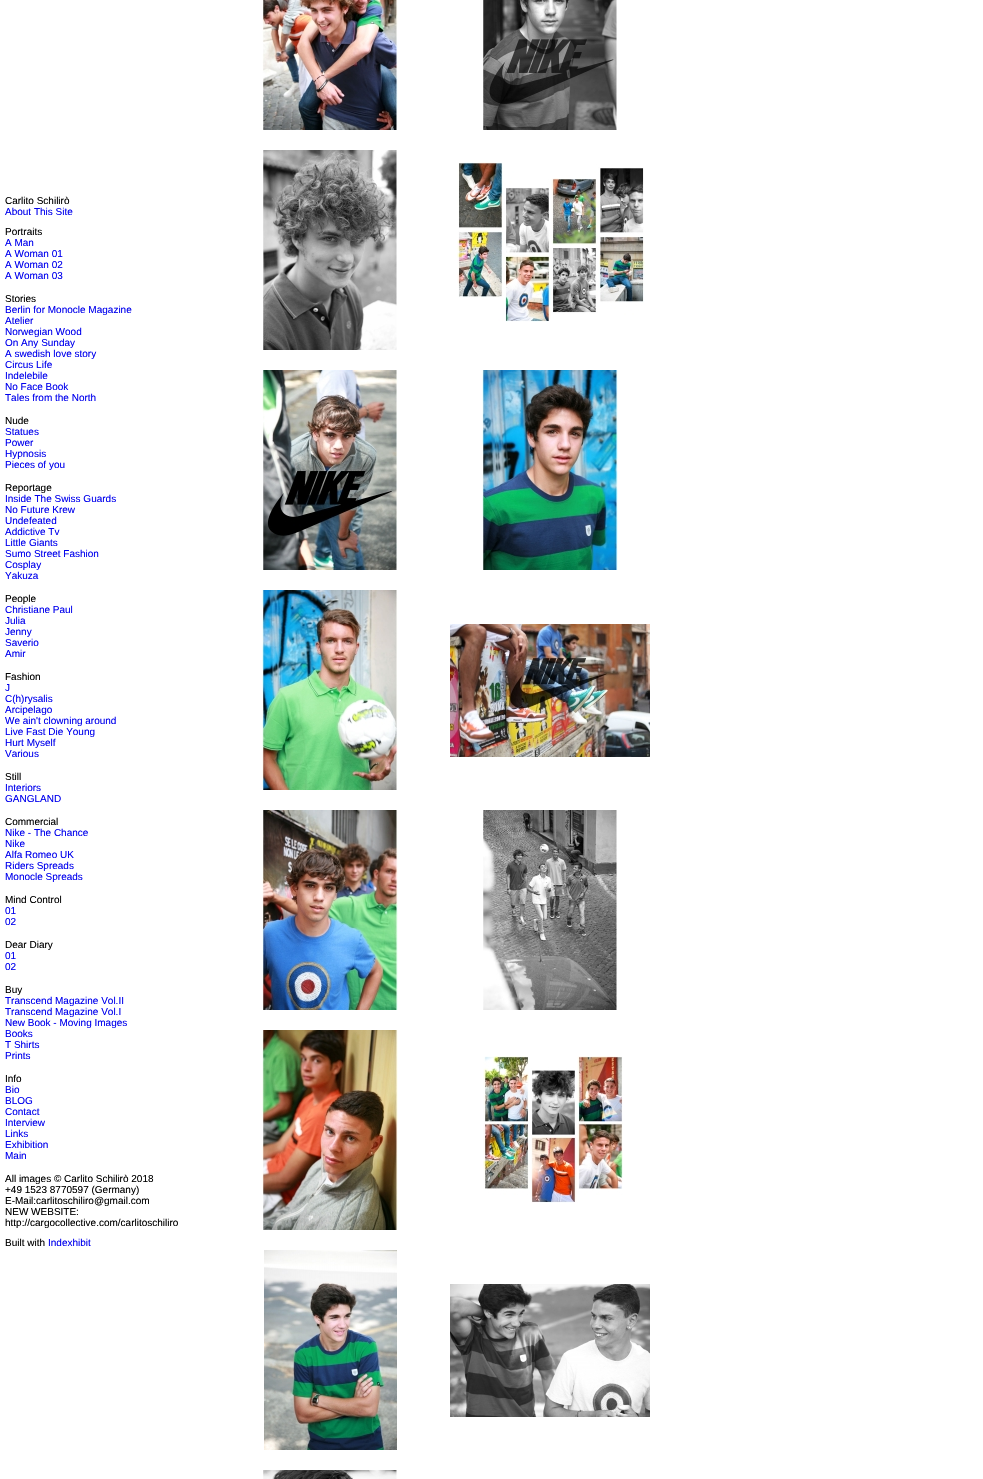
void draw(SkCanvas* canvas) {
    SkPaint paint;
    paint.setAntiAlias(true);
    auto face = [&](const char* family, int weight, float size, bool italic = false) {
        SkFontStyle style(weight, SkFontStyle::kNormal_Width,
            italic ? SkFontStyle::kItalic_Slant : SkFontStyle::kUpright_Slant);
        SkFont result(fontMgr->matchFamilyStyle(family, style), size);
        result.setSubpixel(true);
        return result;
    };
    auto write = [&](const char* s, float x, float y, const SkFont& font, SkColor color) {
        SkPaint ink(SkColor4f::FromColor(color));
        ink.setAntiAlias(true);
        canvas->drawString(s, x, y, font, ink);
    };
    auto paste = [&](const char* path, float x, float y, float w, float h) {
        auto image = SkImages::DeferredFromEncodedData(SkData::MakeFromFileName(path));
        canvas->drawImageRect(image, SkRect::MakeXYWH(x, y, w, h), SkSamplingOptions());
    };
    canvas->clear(SK_ColorWHITE);
    auto kFont1 = face("Liberation Sans", 400, 10);
    write("Carlito Schilirò", 5, 204, kFont1, SK_ColorBLACK);
    write("About This Site", 5, 215, kFont1, SkColorSetRGB(0, 0, 238));
    write("Portraits", 5, 235, kFont1, SK_ColorBLACK);
    write("A Man", 5, 246, kFont1, SkColorSetRGB(0, 0, 238));
    write("A Woman 01", 5, 257, kFont1, SkColorSetRGB(0, 0, 238));
    write("A Woman 02", 5, 268, kFont1, SkColorSetRGB(0, 0, 238));
    write("A Woman 03", 5, 279, kFont1, SkColorSetRGB(0, 0, 238));
    write("Stories", 5, 302, kFont1, SK_ColorBLACK);
    write("Berlin for Monocle Magazine", 5, 313, kFont1, SkColorSetRGB(0, 0, 238));
    write("Atelier", 5, 324, kFont1, SkColorSetRGB(0, 0, 238));
    write("Norwegian Wood", 5, 335, kFont1, SkColorSetRGB(0, 0, 238));
    write("On Any Sunday", 5, 346, kFont1, SkColorSetRGB(0, 0, 238));
    write("A swedish love story", 5, 357, kFont1, SkColorSetRGB(0, 0, 238));
    write("Circus Life", 5, 368, kFont1, SkColorSetRGB(0, 0, 238));
    write("Indelebile", 5, 379, kFont1, SkColorSetRGB(0, 0, 238));
    write("No Face Book", 5, 390, kFont1, SkColorSetRGB(0, 0, 238));
    write("Tales from the North", 5, 401, kFont1, SkColorSetRGB(0, 0, 238));
    write("Nude", 5, 424, kFont1, SK_ColorBLACK);
    write("Statues", 5, 435, kFont1, SkColorSetRGB(0, 0, 238));
    write("Power", 5, 446, kFont1, SkColorSetRGB(0, 0, 238));
    write("Hypnosis", 5, 457, kFont1, SkColorSetRGB(0, 0, 238));
    write("Pieces of you", 5, 468, kFont1, SkColorSetRGB(0, 0, 238));
    write("Reportage", 5, 491, kFont1, SK_ColorBLACK);
    write("Inside The Swiss Guards", 5, 502, kFont1, SkColorSetRGB(0, 0, 238));
    write("No Future Krew", 5, 513, kFont1, SkColorSetRGB(0, 0, 238));
    write("Undefeated", 5, 524, kFont1, SkColorSetRGB(0, 0, 238));
    write("Addictive Tv", 5, 535, kFont1, SkColorSetRGB(0, 0, 238));
    write("Little Giants", 5, 546, kFont1, SkColorSetRGB(0, 0, 238));
    write("Sumo Street Fashion", 5, 557, kFont1, SkColorSetRGB(0, 0, 238));
    write("Cosplay", 5, 568, kFont1, SkColorSetRGB(0, 0, 238));
    write("Yakuza", 5, 579, kFont1, SkColorSetRGB(0, 0, 238));
    write("People", 5, 602, kFont1, SK_ColorBLACK);
    write("Christiane Paul", 5, 613, kFont1, SkColorSetRGB(0, 0, 238));
    write("Julia", 5, 624, kFont1, SkColorSetRGB(0, 0, 238));
    write("Jenny", 5, 635, kFont1, SkColorSetRGB(0, 0, 238));
    write("Saverio", 5, 646, kFont1, SkColorSetRGB(0, 0, 238));
    write("Amir", 5, 657, kFont1, SkColorSetRGB(0, 0, 238));
    write("Fashion", 5, 680, kFont1, SK_ColorBLACK);
    write("J", 5, 691, kFont1, SkColorSetRGB(0, 0, 238));
    write("C(h)rysalis", 5, 702, kFont1, SkColorSetRGB(0, 0, 238));
    write("Arcipelago", 5, 713, kFont1, SkColorSetRGB(0, 0, 238));
    write("We ain't clowning around", 5, 724, kFont1, SkColorSetRGB(0, 0, 238));
    write("Live Fast Die Young", 5, 735, kFont1, SkColorSetRGB(0, 0, 238));
    write("Hurt Myself", 5, 746, kFont1, SkColorSetRGB(0, 0, 238));
    write("Various", 5, 757, kFont1, SkColorSetRGB(0, 0, 238));
    write("Still", 5, 780, kFont1, SK_ColorBLACK);
    write("Interiors", 5, 791, kFont1, SkColorSetRGB(0, 0, 238));
    write("GANGLAND", 5, 802, kFont1, SkColorSetRGB(0, 0, 238));
    write("Commercial", 5, 825, kFont1, SK_ColorBLACK);
    write("Nike - The Chance", 5, 836, kFont1, SkColorSetRGB(0, 0, 238));
    write("Nike", 5, 847, kFont1, SkColorSetRGB(0, 0, 238));
    write("Alfa Romeo UK", 5, 858, kFont1, SkColorSetRGB(0, 0, 238));
    write("Riders Spreads", 5, 869, kFont1, SkColorSetRGB(0, 0, 238));
    write("Monocle Spreads", 5, 880, kFont1, SkColorSetRGB(0, 0, 238));
    write("Mind Control", 5, 903, kFont1, SK_ColorBLACK);
    write("01", 5, 914, kFont1, SkColorSetRGB(0, 0, 238));
    write("02", 5, 925, kFont1, SkColorSetRGB(0, 0, 238));
    write("Dear Diary", 5, 948, kFont1, SK_ColorBLACK);
    write("01", 5, 959, kFont1, SkColorSetRGB(0, 0, 238));
    write("02", 5, 970, kFont1, SkColorSetRGB(0, 0, 238));
    write("Buy", 5, 993, kFont1, SK_ColorBLACK);
    write("Transcend Magazine Vol.II", 5, 1004, kFont1, SkColorSetRGB(0, 0, 238));
    write("Transcend Magazine Vol.I", 5, 1015, kFont1, SkColorSetRGB(0, 0, 238));
    write("New Book - Moving Images", 5, 1026, kFont1, SkColorSetRGB(0, 0, 238));
    write("Books", 5, 1037, kFont1, SkColorSetRGB(0, 0, 238));
    write("T Shirts", 5, 1048, kFont1, SkColorSetRGB(0, 0, 238));
    write("Prints", 5, 1059, kFont1, SkColorSetRGB(0, 0, 238));
    write("Info", 5, 1082, kFont1, SK_ColorBLACK);
    write("Bio", 5, 1093, kFont1, SkColorSetRGB(0, 0, 238));
    write("BLOG", 5, 1104, kFont1, SkColorSetRGB(0, 0, 238));
    write("Contact", 5, 1115, kFont1, SkColorSetRGB(0, 0, 238));
    write("Interview", 5, 1126, kFont1, SkColorSetRGB(0, 0, 238));
    write("Links", 5, 1137, kFont1, SkColorSetRGB(0, 0, 238));
    write("Exhibition", 5, 1148, kFont1, SkColorSetRGB(0, 0, 238));
    write("Main", 5, 1159, kFont1, SkColorSetRGB(0, 0, 238));
    write("All images © Carlito Schilirò 2018", 5, 1182, kFont1, SK_ColorBLACK);
    write("+49 1523 8770597 (Germany)", 5, 1193, kFont1, SK_ColorBLACK);
    write("E-Mail:carlitoschiliro@gmail.com", 5, 1204, kFont1, SK_ColorBLACK);
    write("NEW WEBSITE:", 5, 1215, kFont1, SK_ColorBLACK);
    write("http://cargocollective.com/carlitoschiliro", 5, 1226, kFont1, SK_ColorBLACK);
    write("Built with", 5, 1246, kFont1, SK_ColorBLACK);
    write("Indexhibit", 48, 1246, kFont1, SkColorSetRGB(0, 0, 238));
    paste("pic1.png", 262, 0, 136, 130);
    paste("pic2.png", 483, 0, 134, 130);
    paste("pic3.png", 263, 150, 134, 200);
    paste("pic4.png", 457, 162, 188, 160);
    paste("pic5.png", 262, 370, 135, 200);
    paste("pic6.png", 482, 370, 136, 200);
    paste("pic7.png", 262, 590, 136, 200);
    paste("pic8.png", 450, 624, 200, 133);
    paste("pic9.png", 262, 810, 136, 200);
    paste("pic10.png", 483, 810, 134, 200);
    paste("pic11.png", 262, 1030, 136, 200);
    paste("pic12.png", 483, 1056, 140, 147);
    paste("pic13.png", 264, 1250, 133, 200);
    paste("pic14.png", 450, 1284, 200, 133);
    paste("pic15.png", 263, 1470, 134, 9);
}
